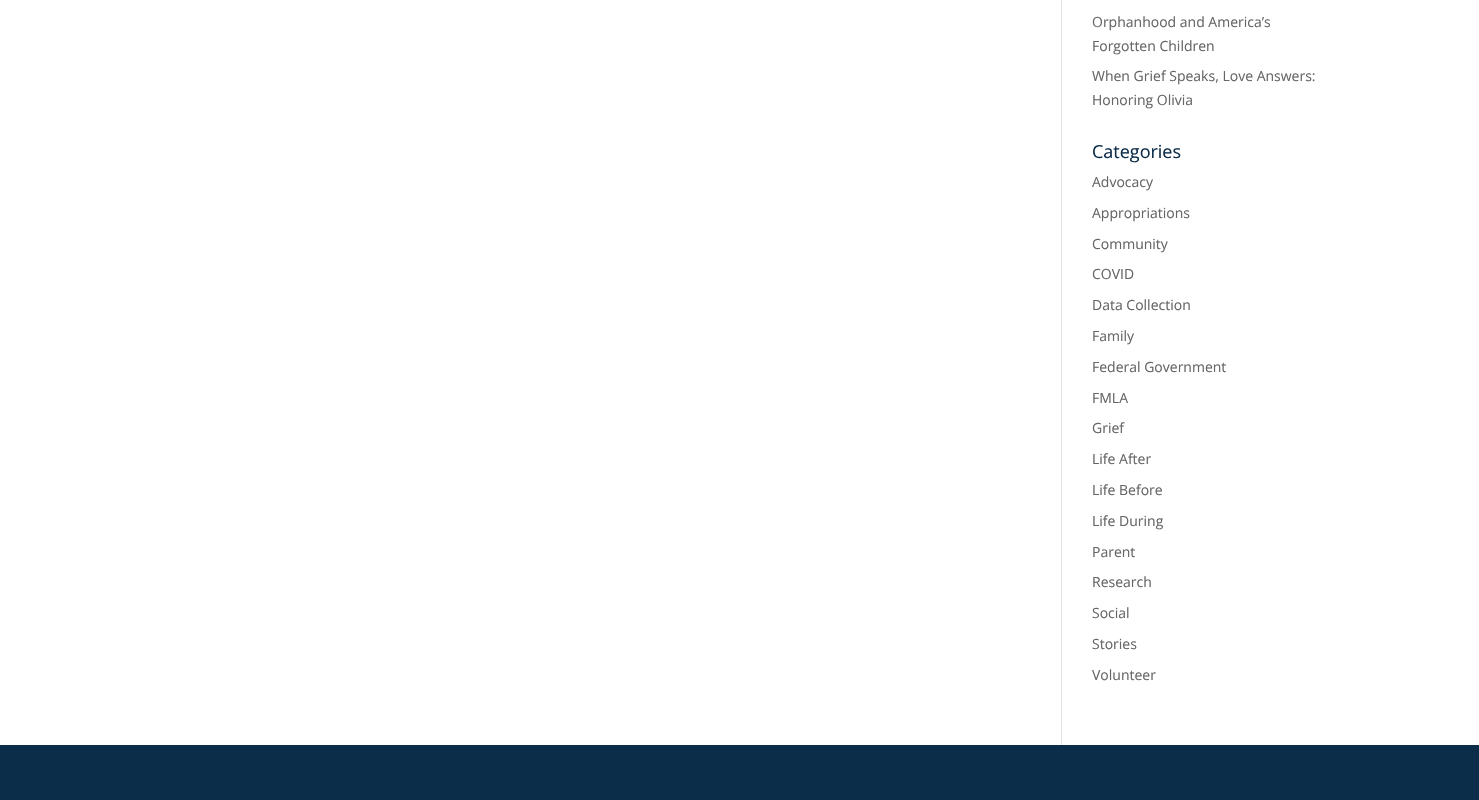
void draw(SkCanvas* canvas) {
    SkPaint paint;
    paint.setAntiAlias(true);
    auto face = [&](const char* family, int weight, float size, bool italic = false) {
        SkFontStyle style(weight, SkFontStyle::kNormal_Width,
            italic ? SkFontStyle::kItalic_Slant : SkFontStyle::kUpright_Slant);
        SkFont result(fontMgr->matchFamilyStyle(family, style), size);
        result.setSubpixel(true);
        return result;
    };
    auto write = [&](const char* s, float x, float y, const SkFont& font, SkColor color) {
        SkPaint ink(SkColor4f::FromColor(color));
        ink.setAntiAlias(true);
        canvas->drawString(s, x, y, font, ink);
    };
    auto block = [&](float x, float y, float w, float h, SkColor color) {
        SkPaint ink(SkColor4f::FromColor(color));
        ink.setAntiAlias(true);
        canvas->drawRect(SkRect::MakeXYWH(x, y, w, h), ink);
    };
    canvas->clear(SK_ColorWHITE);
    block(1061, 0, 1, 745, SkColorSetRGB(226, 226, 226));
    auto kFont1 = face("Open Sans", 400, 14);
    write("Orphanhood and America’s", 1092, 27, kFont1, SkColorSetRGB(102, 102, 102));
    write("Forgotten Children", 1092, 51, kFont1, SkColorSetRGB(102, 102, 102));
    write("When Grief Speaks, Love Answers:", 1092, 81, kFont1, SkColorSetRGB(102, 102, 102));
    write("Honoring Olivia", 1092, 105, kFont1, SkColorSetRGB(102, 102, 102));
    auto kFont2 = face("Open Sans", 400, 18);
    write("Categories", 1092, 158, kFont2, SkColorSetRGB(12, 45, 73));
    write("Advocacy", 1092, 187, kFont1, SkColorSetRGB(102, 102, 102));
    write("Appropriations", 1092, 218, kFont1, SkColorSetRGB(102, 102, 102));
    write("Community", 1092, 249, kFont1, SkColorSetRGB(102, 102, 102));
    write("COVID", 1092, 279, kFont1, SkColorSetRGB(102, 102, 102));
    write("Data Collection", 1092, 310, kFont1, SkColorSetRGB(102, 102, 102));
    write("Family", 1092, 341, kFont1, SkColorSetRGB(102, 102, 102));
    write("Federal Government", 1092, 372, kFont1, SkColorSetRGB(102, 102, 102));
    write("FMLA", 1092, 403, kFont1, SkColorSetRGB(102, 102, 102));
    write("Grief", 1092, 433, kFont1, SkColorSetRGB(102, 102, 102));
    write("Life After", 1092, 464, kFont1, SkColorSetRGB(102, 102, 102));
    write("Life Before", 1092, 495, kFont1, SkColorSetRGB(102, 102, 102));
    write("Life During", 1092, 526, kFont1, SkColorSetRGB(102, 102, 102));
    write("Parent", 1092, 557, kFont1, SkColorSetRGB(102, 102, 102));
    write("Research", 1092, 587, kFont1, SkColorSetRGB(102, 102, 102));
    write("Social", 1092, 618, kFont1, SkColorSetRGB(102, 102, 102));
    write("Stories", 1092, 649, kFont1, SkColorSetRGB(102, 102, 102));
    write("Volunteer", 1092, 680, kFont1, SkColorSetRGB(102, 102, 102));
    block(0, 745, 1479, 55, SkColorSetRGB(12, 45, 73));
}
